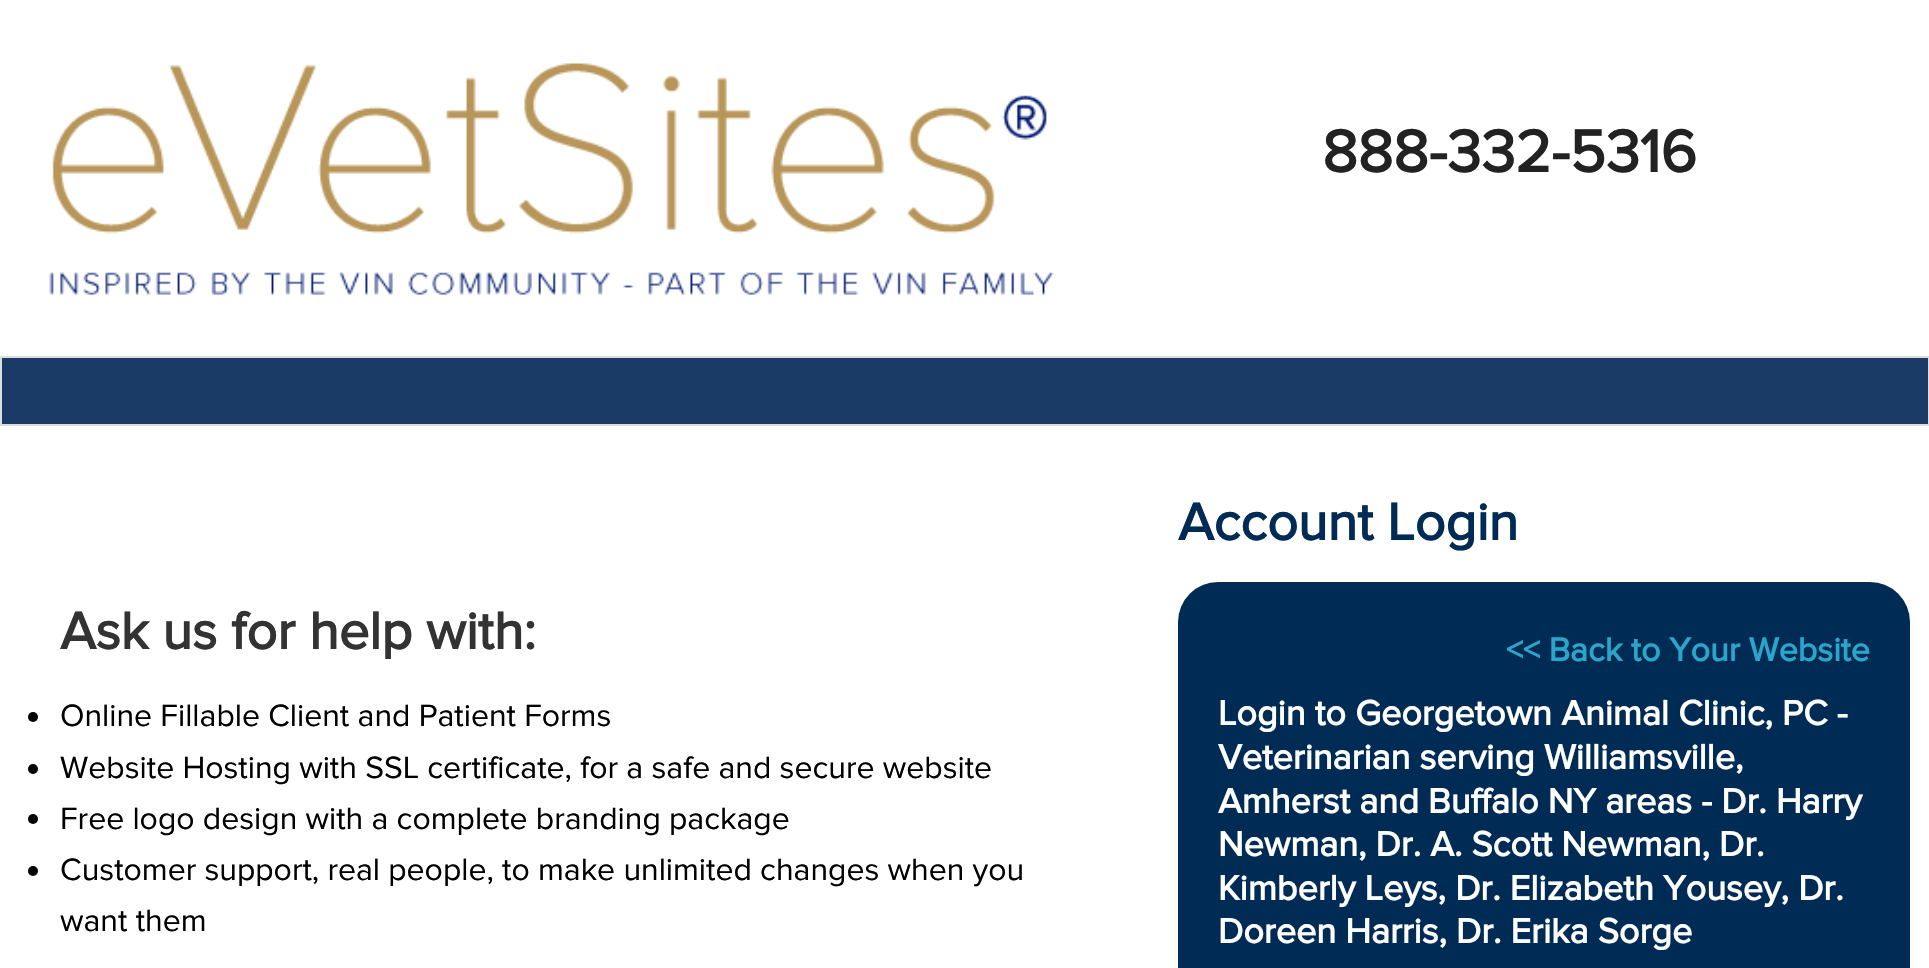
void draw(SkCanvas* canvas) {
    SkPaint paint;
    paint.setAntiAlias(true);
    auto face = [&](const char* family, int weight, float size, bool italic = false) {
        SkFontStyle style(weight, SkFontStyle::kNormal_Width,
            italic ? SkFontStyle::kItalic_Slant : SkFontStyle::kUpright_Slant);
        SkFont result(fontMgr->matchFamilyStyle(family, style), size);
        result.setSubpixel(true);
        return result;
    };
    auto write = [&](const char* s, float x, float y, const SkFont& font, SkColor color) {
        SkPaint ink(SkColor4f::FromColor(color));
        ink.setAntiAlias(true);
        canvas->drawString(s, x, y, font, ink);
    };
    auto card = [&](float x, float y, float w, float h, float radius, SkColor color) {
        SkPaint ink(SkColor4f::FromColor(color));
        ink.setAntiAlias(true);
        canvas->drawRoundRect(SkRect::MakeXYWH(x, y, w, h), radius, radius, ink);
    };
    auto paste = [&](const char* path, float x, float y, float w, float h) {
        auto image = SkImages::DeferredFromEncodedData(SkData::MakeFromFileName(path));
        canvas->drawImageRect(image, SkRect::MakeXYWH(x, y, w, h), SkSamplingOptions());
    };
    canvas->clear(SK_ColorWHITE);
    paste("pic1.png", 49, 63, 1005, 232);
    auto kFont1 = face("Proxima Nova", 700, 61.25f);
    write("888-332-5316", 1322, 172, kFont1, SkColorSetRGB(34, 34, 34));
    paint.setColor(SkColorSetRGB(26, 59, 101));
    canvas->drawRect(SkRect::MakeXYWH(1, 357, 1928, 68), paint);
    paint.setStyle(SkPaint::kStroke_Style);
    paint.setStrokeWidth(2);
    paint.setColor(SkColorSetRGB(221, 221, 221));
    canvas->drawRect(SkRect::MakeXYWH(1, 357, 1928, 68), paint);
    auto kFont2 = face("Proxima Nova", 700, 54);
    write("Ask us for help with:", 60, 649, kFont2, SkColorSetRGB(51, 51, 51));
    paint.setStyle(SkPaint::kFill_Style);
    paint.setColor(SK_ColorBLACK);
    canvas->drawCircle(33, 717, 5, paint);
    auto kFont3 = face("Proxima Nova", 400, 32);
    write("Online Fillable Client and Patient Forms", 60, 726, kFont3, SK_ColorBLACK);
    canvas->drawCircle(33, 769, 5, paint);
    write("Website Hosting with SSL certificate, for a safe and secure website", 60, 778, kFont3, SK_ColorBLACK);
    canvas->drawCircle(33, 819, 5, paint);
    write("Free logo design with a complete branding package", 60, 829, kFont3, SK_ColorBLACK);
    canvas->drawCircle(33, 871, 5, paint);
    write("Customer support, real people, to make unlimited changes when you", 60, 880, kFont3, SK_ColorBLACK);
    write("want them", 60, 931, kFont3, SK_ColorBLACK);
    write("Account Login", 1178, 540, kFont2, SkColorSetRGB(0, 43, 85));
    card(1178, 582, 732, 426, 40, SkColorSetRGB(0, 43, 85));
    auto kFont4 = face("Proxima Nova", 700, 34);
    write("<< Back to Your Website", 1506, 661, kFont4, SkColorSetRGB(43, 166, 203));
    auto kFont5 = face("Proxima Nova", 700, 36);
    write("Login to Georgetown Animal Clinic, PC -", 1218, 725, kFont5, SK_ColorWHITE);
    write("Veterinarian serving Williamsville,", 1218, 769, kFont5, SK_ColorWHITE);
    write("Amherst and Buffalo NY areas - Dr. Harry", 1218, 813, kFont5, SK_ColorWHITE);
    write("Newman, Dr. A. Scott Newman, Dr.", 1218, 856, kFont5, SK_ColorWHITE);
    write("Kimberly Leys, Dr. Elizabeth Yousey, Dr.", 1218, 900, kFont5, SK_ColorWHITE);
    write("Doreen Harris, Dr. Erika Sorge", 1218, 943, kFont5, SK_ColorWHITE);
}
